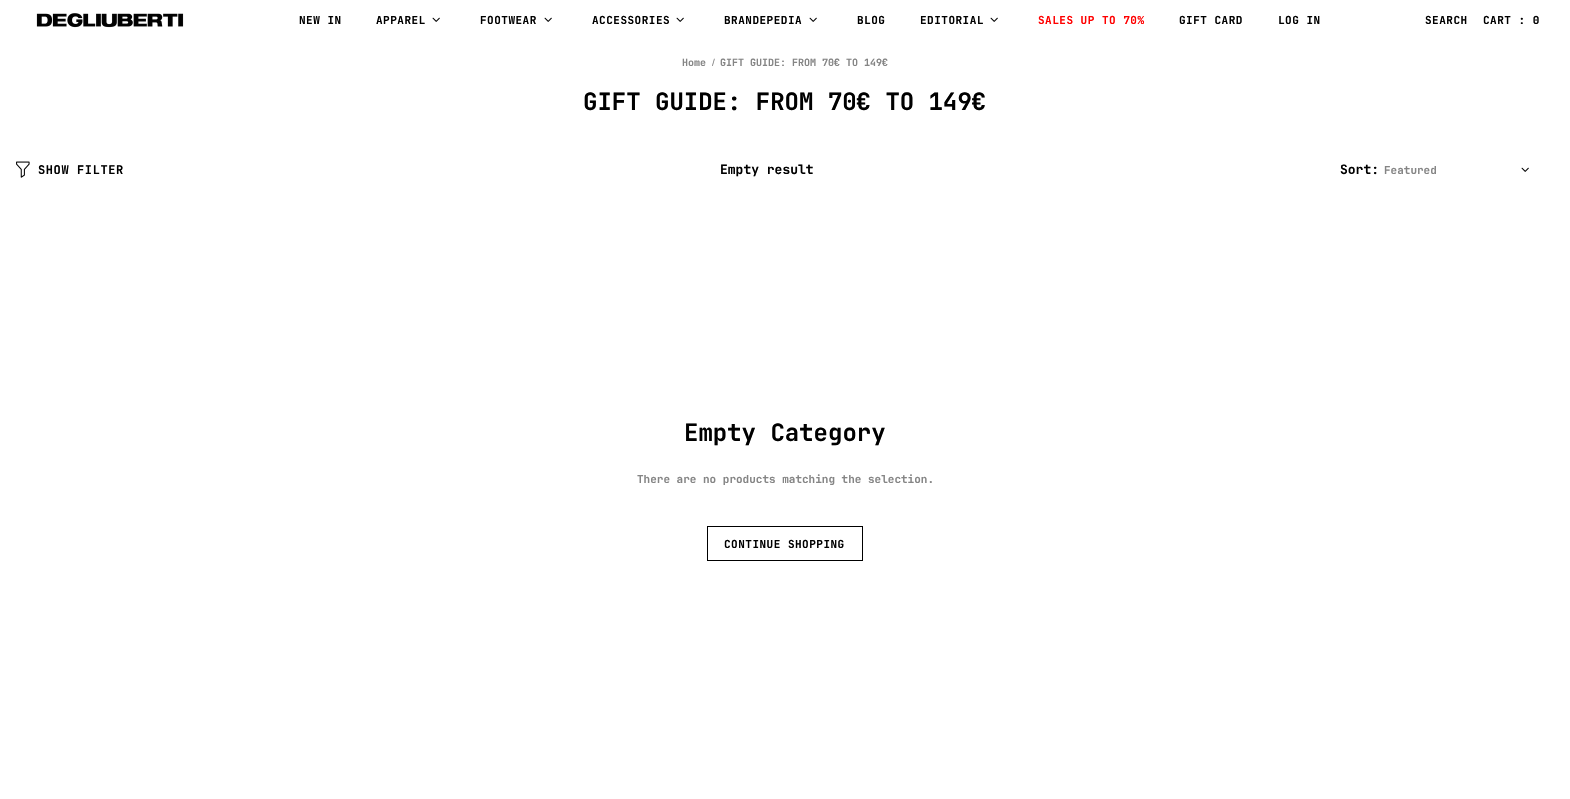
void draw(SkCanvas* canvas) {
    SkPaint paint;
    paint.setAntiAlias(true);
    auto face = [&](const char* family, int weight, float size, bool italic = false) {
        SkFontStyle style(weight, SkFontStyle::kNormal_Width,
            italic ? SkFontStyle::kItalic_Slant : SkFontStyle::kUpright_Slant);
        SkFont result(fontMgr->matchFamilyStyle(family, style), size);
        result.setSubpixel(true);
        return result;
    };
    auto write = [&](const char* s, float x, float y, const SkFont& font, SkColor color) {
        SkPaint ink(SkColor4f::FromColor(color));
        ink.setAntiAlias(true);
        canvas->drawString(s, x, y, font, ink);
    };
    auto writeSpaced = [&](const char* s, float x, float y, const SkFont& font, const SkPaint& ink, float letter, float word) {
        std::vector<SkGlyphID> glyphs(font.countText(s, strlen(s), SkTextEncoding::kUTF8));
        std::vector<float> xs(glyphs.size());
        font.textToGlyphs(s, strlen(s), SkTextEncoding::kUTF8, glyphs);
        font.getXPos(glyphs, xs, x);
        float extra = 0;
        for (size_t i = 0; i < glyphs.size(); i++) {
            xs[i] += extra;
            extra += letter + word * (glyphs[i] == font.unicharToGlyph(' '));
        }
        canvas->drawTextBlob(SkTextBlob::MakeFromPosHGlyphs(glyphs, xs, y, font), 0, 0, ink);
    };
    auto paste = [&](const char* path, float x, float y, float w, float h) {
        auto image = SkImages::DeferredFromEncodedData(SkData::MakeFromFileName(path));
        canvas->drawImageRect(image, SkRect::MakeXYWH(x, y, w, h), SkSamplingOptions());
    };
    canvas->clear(SK_ColorWHITE);
    paste("pic1.png", 36, 13, 148, 15);
    auto kFont1 = face("JetBrains Mono", 700, 11);
    paint.setColor(SK_ColorBLACK);
    writeSpaced("NEW IN", 299, 24, kFont1, paint, 0.5f, 0);
    writeSpaced("APPAREL", 376, 24, kFont1, paint, 0.5f, 0);
    paste("pic2.png", 432, 17, 8, 5);
    writeSpaced("FOOTWEAR", 480, 24, kFont1, paint, 0.5f, 0);
    paste("pic2.png", 544, 17, 8, 5);
    writeSpaced("ACCESSORIES", 592, 24, kFont1, paint, 0.5f, 0);
    paste("pic2.png", 676, 17, 8, 5);
    writeSpaced("BRANDEPEDIA", 724, 24, kFont1, paint, 0.5f, 0);
    paste("pic2.png", 809, 17, 8, 5);
    writeSpaced("BLOG", 857, 24, kFont1, paint, 0.5f, 0);
    writeSpaced("EDITORIAL", 920, 24, kFont1, paint, 0.5f, 0);
    paste("pic2.png", 990, 17, 8, 5);
    paint.setColor(SkColorSetRGB(255, 0, 0));
    writeSpaced("SALES UP TO 70%", 1038, 24, kFont1, paint, 0.5f, 0);
    paint.setColor(SK_ColorBLACK);
    writeSpaced("GIFT CARD", 1179, 24, kFont1, paint, 0.5f, 0);
    writeSpaced("LOG IN", 1278, 24, kFont1, paint, 0.5f, 0);
    writeSpaced("SEARCH", 1425, 24, kFont1, paint, 0.5f, 0);
    writeSpaced("CART : 0", 1483, 24, kFont1, paint, 0.5f, 0);
    auto kFont2 = face("JetBrains Mono", 700, 10);
    write("Home", 682, 66, kFont2, SkColorSetRGB(133, 133, 133));
    auto kFont3 = face("Liberation Sans", 400, 10);
    write("/", 712, 66, kFont3, SkColorSetRGB(133, 133, 133));
    write("GIFT GUIDE: FROM 70€ TO 149€", 720, 66, kFont2, SkColorSetRGB(133, 133, 133));
    auto kFont4 = face("JetBrains Mono", 700, 24);
    write("GIFT GUIDE: FROM 70€ TO 149€", 583, 110, kFont4, SK_ColorBLACK);
    paste("pic3.png", 16, 161, 14, 17);
    auto kFont5 = face("JetBrains Mono", 700, 12);
    writeSpaced("SHOW FILTER", 38, 174, kFont5, paint, 0.6f, 0);
    auto kFont6 = face("JetBrains Mono", 700, 13);
    write("Empty result", 720, 174, kFont6, SK_ColorBLACK);
    write("Sort:", 1340, 174, kFont6, SK_ColorBLACK);
    write("Featured", 1384, 174, kFont1, SkColorSetRGB(133, 133, 133));
    paste("pic2.png", 1521, 167, 8, 5);
    write("Empty Category", 684, 441, kFont4, SK_ColorBLACK);
    write("There are no products matching the selection.", 637, 483, kFont1, SkColorSetRGB(133, 133, 133));
    paint.setStyle(SkPaint::kStroke_Style);
    paint.setStrokeWidth(1);
    canvas->drawRect(SkRect::MakeXYWH(707.5f, 526.5f, 155, 34), paint);
    paint.setStyle(SkPaint::kFill_Style);
    writeSpaced("CONTINUE SHOPPING", 724, 548, kFont1, paint, 0.5f, 0);
}
